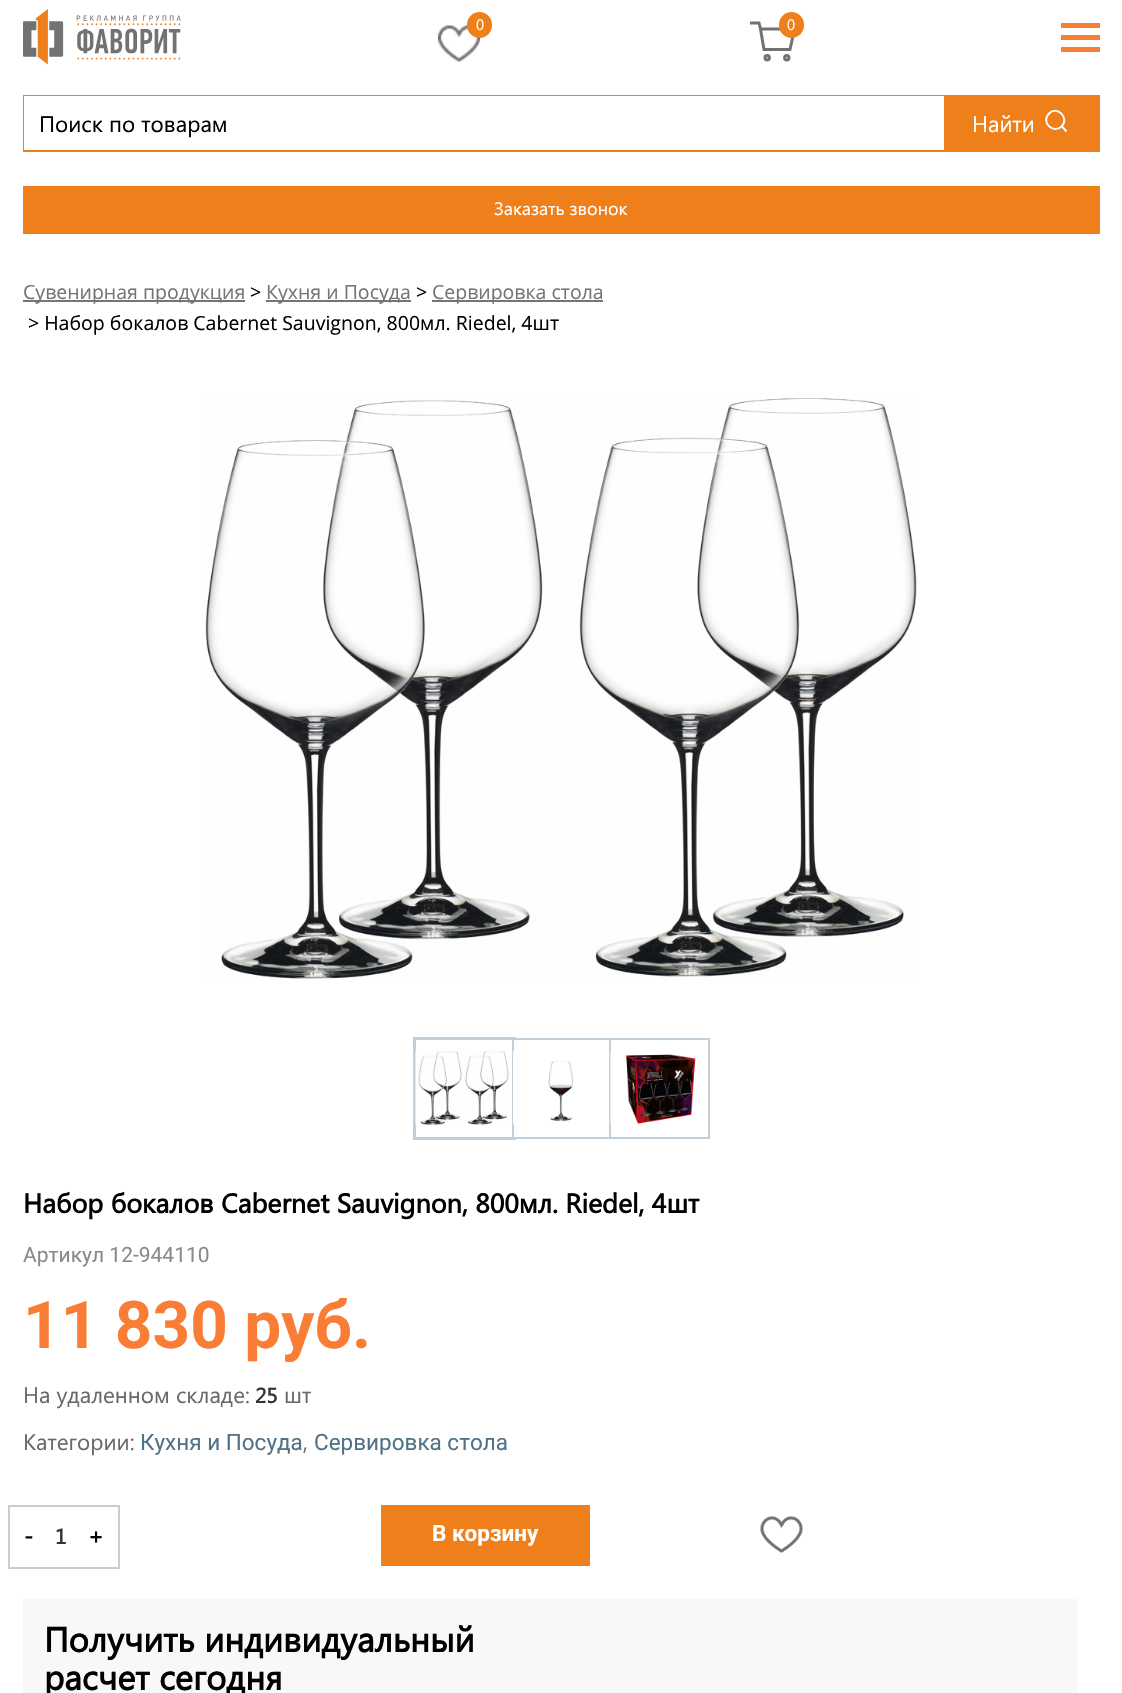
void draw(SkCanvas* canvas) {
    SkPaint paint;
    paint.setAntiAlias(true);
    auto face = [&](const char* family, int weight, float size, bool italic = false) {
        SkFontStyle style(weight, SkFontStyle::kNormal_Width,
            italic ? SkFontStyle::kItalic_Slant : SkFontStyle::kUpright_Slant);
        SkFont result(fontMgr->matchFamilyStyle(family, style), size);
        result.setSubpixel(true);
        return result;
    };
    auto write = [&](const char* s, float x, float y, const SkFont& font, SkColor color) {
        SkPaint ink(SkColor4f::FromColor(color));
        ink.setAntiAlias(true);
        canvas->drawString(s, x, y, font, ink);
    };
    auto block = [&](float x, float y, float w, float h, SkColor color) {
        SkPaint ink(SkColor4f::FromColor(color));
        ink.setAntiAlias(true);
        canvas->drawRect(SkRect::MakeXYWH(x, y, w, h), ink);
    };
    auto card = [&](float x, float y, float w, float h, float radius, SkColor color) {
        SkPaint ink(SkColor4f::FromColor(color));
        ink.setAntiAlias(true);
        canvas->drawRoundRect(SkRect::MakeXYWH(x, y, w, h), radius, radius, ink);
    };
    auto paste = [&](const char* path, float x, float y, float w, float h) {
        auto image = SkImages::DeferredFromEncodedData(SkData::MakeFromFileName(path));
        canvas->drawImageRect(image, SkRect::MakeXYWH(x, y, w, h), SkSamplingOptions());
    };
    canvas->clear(SK_ColorWHITE);
    paste("pic1.png", 23, 9, 158, 56);
    paste("pic2.png", 438, 25, 42, 37);
    card(467, 12, 25, 26, 12.5f, SkColorSetRGB(239, 127, 26));
    auto kFont1 = face("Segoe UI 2", 400, 15);
    write("0", 476, 30, kFont1, SK_ColorWHITE);
    paint.setStyle(SkPaint::kStroke_Style);
    paint.setStrokeWidth(3);
    paint.setColor(SkColorSetRGB(114, 114, 113));
    canvas->drawPath(SkPathBuilder().moveTo(750, 23).lineTo(759, 23).lineTo(760.5f, 29).moveTo(760.5f, 29).lineTo(764, 49.5f).lineTo(790, 49.5f).lineTo(794.5f, 29).close().detach(), paint);
    card(779, 12, 25, 26, 12.5f, SkColorSetRGB(239, 127, 26));
    write("0", 787, 30, kFont1, SK_ColorWHITE);
    canvas->drawCircle(767.2f, 57.8f, 2.2f, paint);
    canvas->drawCircle(786.8f, 57.8f, 2.2f, paint);
    block(1061, 23, 39, 5, SkColorSetRGB(247, 126, 50));
    block(1061, 35, 39, 5, SkColorSetRGB(247, 126, 50));
    block(1061, 47, 39, 5, SkColorSetRGB(247, 126, 50));
    block(23, 95, 1077, 57, SkColorSetRGB(239, 127, 26));
    block(24, 96, 920, 54, SK_ColorWHITE);
    auto kFont2 = face("Segoe UI 2", 400, 22.5f);
    write("Поиск по товарам", 39, 132, kFont2, SK_ColorBLACK);
    write("Найти", 972, 132, kFont2, SK_ColorWHITE);
    paint.setStrokeWidth(1.9f);
    paint.setColor(SK_ColorWHITE);
    canvas->drawPath(SkPathBuilder().moveTo(1049, 113.5f).cubicTo(1057, 105, 1070, 118, 1061.5f, 126.5f).cubicTo(1053, 134.5f, 1040.5f, 122, 1049, 113.5f).close().moveTo(1061.5f, 126).lineTo(1066.5f, 131.5f).detach(), paint);
    block(23, 186, 1077, 48, SkColorSetRGB(239, 127, 26));
    auto kFont3 = face("Segoe UI 2", 400, 18);
    write("Заказать звонок", 494, 215, kFont3, SK_ColorWHITE);
    block(23, 300, 222, 2, SkColorSetRGB(117, 117, 117));
    auto kFont4 = face("Open Sans", 400, 19.5f);
    write("Сувенирная продукция", 23, 299, kFont4, SkColorSetRGB(117, 117, 117));
    write(">", 250, 299, kFont4, SK_ColorBLACK);
    block(266, 300, 145, 2, SkColorSetRGB(117, 117, 117));
    write("Кухня и Посуда", 266, 299, kFont4, SkColorSetRGB(117, 117, 117));
    write(">", 416, 299, kFont4, SK_ColorBLACK);
    block(432, 300, 171, 2, SkColorSetRGB(117, 117, 117));
    write("Сервировка стола", 432, 299, kFont4, SkColorSetRGB(117, 117, 117));
    write("> Набор бокалов Cabernet Sauvignon, 800мл. Riedel, 4шт", 28, 330, kFont4, SK_ColorBLACK);
    paste("pic3.png", 205, 398, 712, 581);
    paint.setStrokeWidth(3);
    paint.setColor(SkColorSetRGB(192, 207, 218));
    canvas->drawRect(SkRect::MakeXYWH(414.5f, 1038.5f, 100, 100), paint);
    paste("pic4.png", 415, 1051, 94, 74);
    block(514, 1040, 2, 97, SK_ColorWHITE);
    paint.setStrokeWidth(2);
    canvas->drawRect(SkRect::MakeXYWH(513, 1039, 98, 99), paint);
    paste("pic5.png", 513, 1051, 60, 74);
    block(611, 1040, 1, 97, SK_ColorWHITE);
    canvas->drawRect(SkRect::MakeXYWH(610, 1039, 99, 99), paint);
    paste("pic6.png", 610, 1051, 86, 74);
    auto kFont5 = face("Segoe UI", 700, 27);
    write("Набор бокалов Cabernet Sauvignon, 800мл. Riedel, 4шт", 23, 1213, kFont5, SK_ColorBLACK);
    auto kFont6 = face("Roboto", 400, 21);
    write("Артикул 12-944110", 23, 1262, kFont6, SkColorSetRGB(138, 138, 138));
    auto kFont7 = face("Roboto", 700, 65.75f);
    write("11 830 руб.", 23, 1348, kFont7, SkColorSetRGB(249, 125, 53));
    auto kFont8 = face("Segoe UI", 400, 22.5f);
    write("На удаленном складе:", 23, 1403, kFont8, SkColorSetRGB(105, 105, 105));
    auto kFont9 = face("Segoe UI", 700, 21);
    write("25", 255, 1403, kFont9, SkColorSetRGB(51, 51, 51));
    write("шт", 284, 1403, kFont8, SkColorSetRGB(105, 105, 105));
    write("Категории:", 23, 1450, kFont8, SkColorSetRGB(105, 105, 105));
    auto kFont10 = face("Roboto", 400, 22.5f);
    write("Кухня и Посуда", 140, 1450, kFont10, SkColorSetRGB(81, 114, 135));
    write(",", 303, 1450, kFont8, SkColorSetRGB(105, 105, 105));
    write("Сервировка стола", 314, 1450, kFont10, SkColorSetRGB(81, 114, 135));
    paint.setColor(SkColorSetRGB(204, 204, 204));
    canvas->drawRect(SkRect::MakeXYWH(9, 1506, 110, 62), paint);
    auto kFont11 = face("Segoe UI", 700, 22.5f);
    write("-", 24, 1544, kFont11, SK_ColorBLACK);
    write("1", 55, 1544, kFont9, SkColorSetRGB(51, 51, 51));
    write("+", 88, 1544, kFont11, SK_ColorBLACK);
    block(381, 1505, 209, 61, SkColorSetRGB(239, 127, 26));
    auto kFont12 = face("Roboto", 700, 22.5f);
    write("В корзину", 432, 1541, kFont12, SK_ColorWHITE);
    paste("pic7.png", 760, 1516, 43, 37);
    block(23, 1599, 1054, 94, SkColorSetRGB(248, 248, 248));
    auto kFont13 = face("Segoe UI", 700, 34.5f);
    write("Получить индивидуальный", 44, 1652, kFont13, SK_ColorBLACK);
    write("расчет сегодня", 44, 1690, kFont13, SK_ColorBLACK);
}
